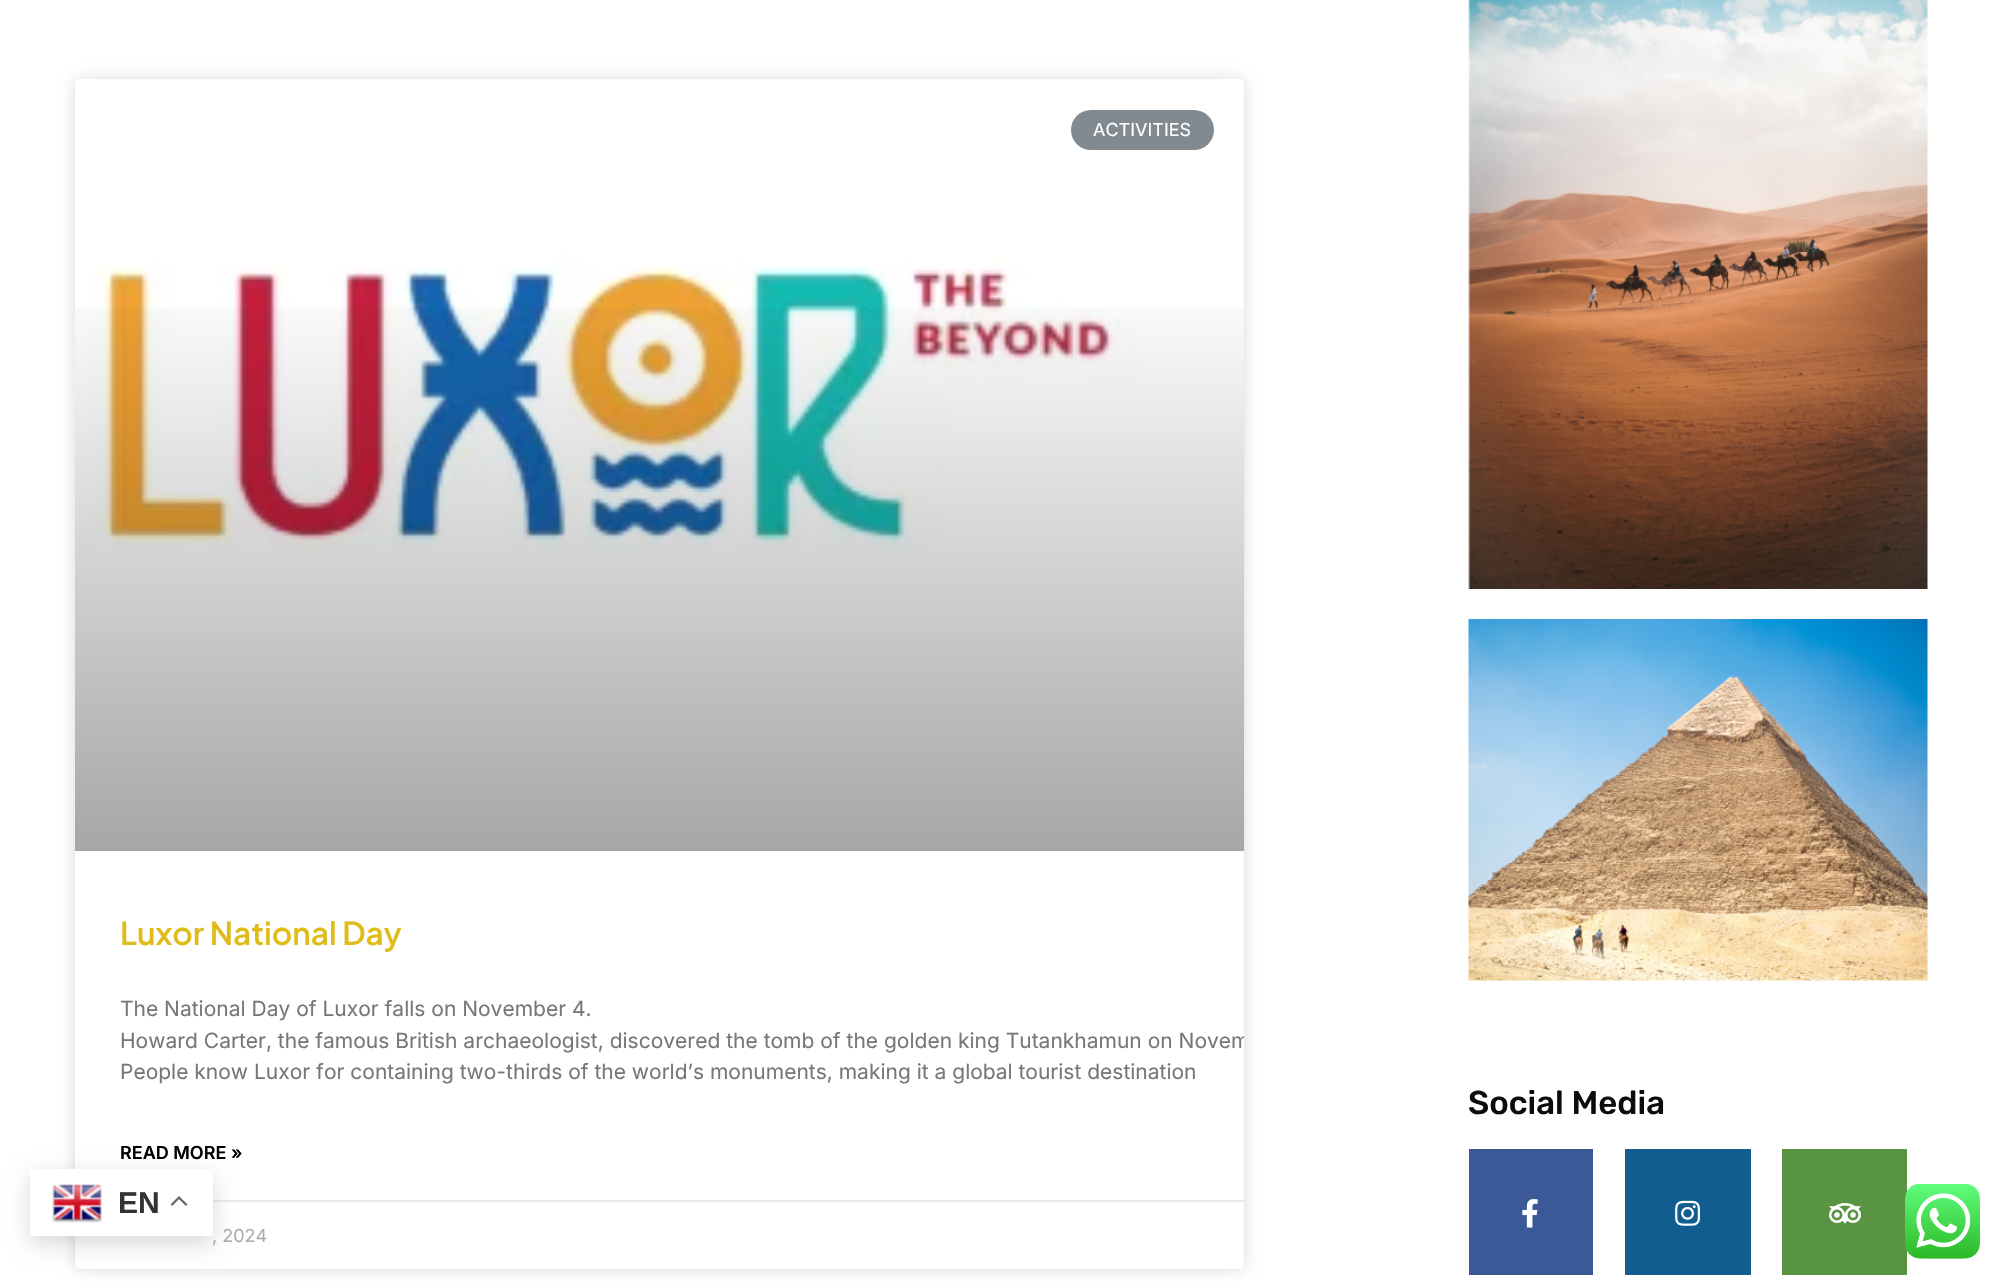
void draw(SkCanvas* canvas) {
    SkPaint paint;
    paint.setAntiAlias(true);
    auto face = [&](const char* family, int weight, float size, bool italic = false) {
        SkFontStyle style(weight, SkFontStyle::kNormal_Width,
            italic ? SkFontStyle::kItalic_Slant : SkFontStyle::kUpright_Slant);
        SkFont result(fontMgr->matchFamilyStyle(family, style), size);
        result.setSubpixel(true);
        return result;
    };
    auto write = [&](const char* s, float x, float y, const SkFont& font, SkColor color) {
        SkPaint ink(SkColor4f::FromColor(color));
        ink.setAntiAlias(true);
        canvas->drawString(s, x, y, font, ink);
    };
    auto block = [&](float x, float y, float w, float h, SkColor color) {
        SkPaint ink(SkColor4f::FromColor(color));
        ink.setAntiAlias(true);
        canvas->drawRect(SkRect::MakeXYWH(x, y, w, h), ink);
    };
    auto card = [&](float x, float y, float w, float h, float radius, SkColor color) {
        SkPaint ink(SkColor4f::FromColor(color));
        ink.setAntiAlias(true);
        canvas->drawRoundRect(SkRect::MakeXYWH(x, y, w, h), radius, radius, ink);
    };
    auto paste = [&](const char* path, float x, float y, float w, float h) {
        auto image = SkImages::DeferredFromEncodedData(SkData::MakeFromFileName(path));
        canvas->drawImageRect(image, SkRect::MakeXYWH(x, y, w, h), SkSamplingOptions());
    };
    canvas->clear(SK_ColorWHITE);
    paint.setColor(SkColorSetARGB(38, 0, 0, 0));
    paint.setMaskFilter(SkMaskFilter::MakeBlur(kNormal_SkBlurStyle, 7.5f));
    canvas->drawRoundRect(SkRect::MakeXYWH(75, 80, 1169, 1189), 5, 5, paint);
    paint.setMaskFilter(nullptr);
    card(75, 80, 1169, 1189, 5, SK_ColorWHITE);
    paste("pic1.png", 75, 79, 1168, 477);
    {
        const SkColor colors[] = {SkColorSetARGB(89, 0, 0, 0), SkColorSetARGB(0, 0, 0, 0)};
        const float stops[] = {0, 0.75f};
        const SkPoint ends[] = {{659, 851}, {659, 80}};
        paint.setShader(SkGradientShader::MakeLinear(ends, colors, stops, 2, SkTileMode::kClamp));
        paint.setAlpha(255);
    }
    canvas->drawRect(SkRect::MakeXYWH(75, 308, 1169, 543), paint);
    card(1071, 110, 143, 40, 20, SkColorSetRGB(129, 138, 145));
    auto kFont1 = face("Inter", 400, 18);
    write("ACTIVITIES", 1093, 136, kFont1, SK_ColorWHITE);
    auto kFont2 = face("Plus Jakarta Sans", 600, 31.5f);
    write("Luxor National Day", 120, 945, kFont2, SkColorSetRGB(224, 188, 24));
    auto kFont3 = face("Inter", 400, 21);
    write("The National Day of Luxor falls on November 4.", 120, 1016, kFont3, SkColorSetRGB(119, 119, 119));
    canvas->save();
    canvas->clipPath(SkPathBuilder().moveTo(80, 80).lineTo(1239, 80).cubicTo(1242, 80, 1244, 82, 1244, 85).lineTo(1244, 1264).cubicTo(1244, 1267, 1242, 1269, 1239, 1269).lineTo(80, 1269).cubicTo(77, 1269, 75, 1267, 75, 1264).lineTo(75, 85).cubicTo(75, 82, 77, 80, 80, 80).close().detach(), true);
    write("Howard Carter, the famous British archaeologist, discovered the tomb of the golden king Tutankhamun on Novem", 120, 1048, kFont3, SkColorSetRGB(119, 119, 119));
    canvas->restore();
    write("People know Luxor for containing two-thirds of the world’s monuments, making it a global tourist destination", 120, 1079, kFont3, SkColorSetRGB(119, 119, 119));
    auto kFont4 = face("Inter", 600, 18);
    write("READ MORE »", 120, 1159, kFont4, SK_ColorBLACK);
    block(213, 1200, 1031, 2, SkColorSetRGB(234, 234, 234));
    write(", 2024", 212, 1242, kFont1, SkColorSetRGB(173, 173, 173));
    paste("pic2.png", 1468, 0, 460, 589);
    paste("pic3.png", 1468, 619, 460, 362);
    auto kFont5 = face("Rubik", 500, 33);
    write("Social Media", 1468, 1114, kFont5, SkColorSetRGB(12, 12, 12));
    block(1469, 1149, 124, 126, SkColorSetRGB(59, 89, 151));
    paste("pic4.png", 1522, 1199, 16, 29);
    block(1625, 1149, 126, 126, SkColorSetRGB(18, 93, 143));
    paste("pic5.png", 1675, 1200, 25, 26);
    block(1782, 1149, 125, 126, SkColorSetRGB(88, 148, 66));
    paste("pic6.png", 1829, 1203, 32, 21);
    paste("pic7.png", 1905, 1184, 75, 75);
    paint.setShader(nullptr);
    paint.setColor(SkColorSetARGB(38, 0, 0, 0));
    paint.setMaskFilter(SkMaskFilter::MakeBlur(kNormal_SkBlurStyle, 11));
    canvas->drawRoundRect(SkRect::MakeXYWH(30, 1176, 183, 68), 3, 3, paint);
    paint.setMaskFilter(nullptr);
    card(30, 1169, 183, 67, 3, SK_ColorWHITE);
    paste("pic8.png", 52, 1184, 50, 39);
    auto kFont6 = face("Liberation Sans", 700, 30);
    write("EN", 118, 1213, kFont6, SkColorSetRGB(51, 51, 51));
    paste("pic9.png", 171, 1196, 17, 10);
}
